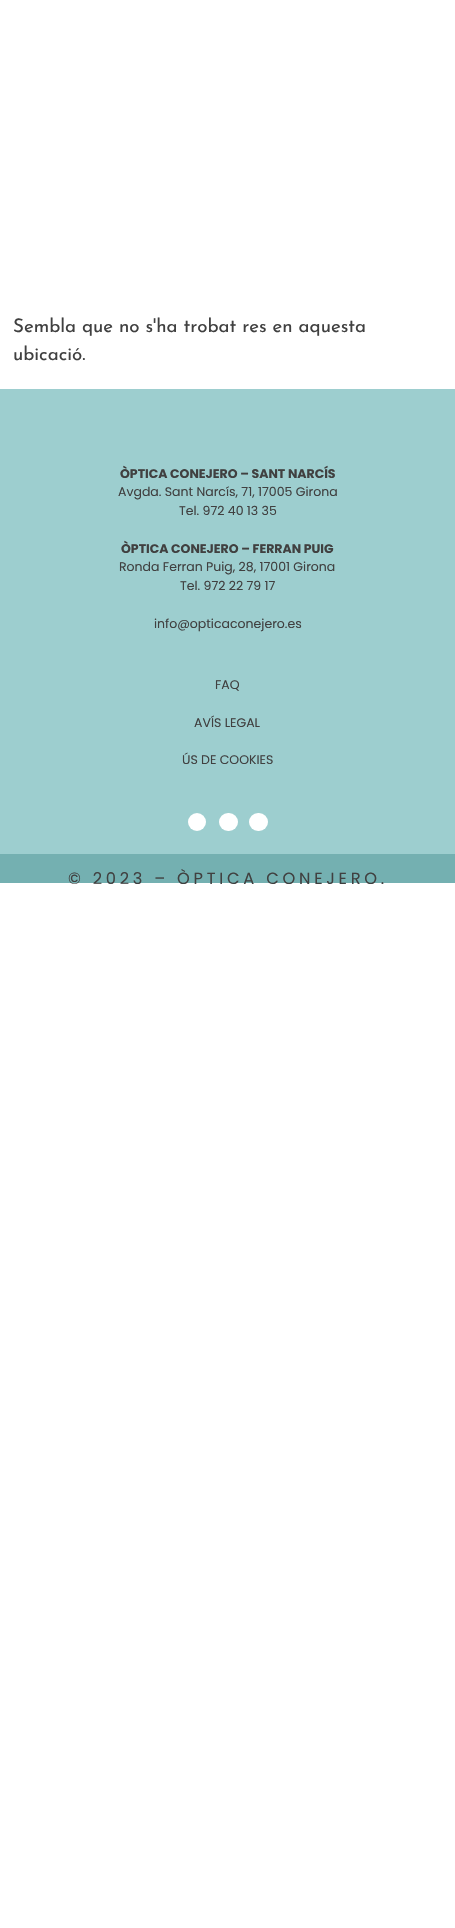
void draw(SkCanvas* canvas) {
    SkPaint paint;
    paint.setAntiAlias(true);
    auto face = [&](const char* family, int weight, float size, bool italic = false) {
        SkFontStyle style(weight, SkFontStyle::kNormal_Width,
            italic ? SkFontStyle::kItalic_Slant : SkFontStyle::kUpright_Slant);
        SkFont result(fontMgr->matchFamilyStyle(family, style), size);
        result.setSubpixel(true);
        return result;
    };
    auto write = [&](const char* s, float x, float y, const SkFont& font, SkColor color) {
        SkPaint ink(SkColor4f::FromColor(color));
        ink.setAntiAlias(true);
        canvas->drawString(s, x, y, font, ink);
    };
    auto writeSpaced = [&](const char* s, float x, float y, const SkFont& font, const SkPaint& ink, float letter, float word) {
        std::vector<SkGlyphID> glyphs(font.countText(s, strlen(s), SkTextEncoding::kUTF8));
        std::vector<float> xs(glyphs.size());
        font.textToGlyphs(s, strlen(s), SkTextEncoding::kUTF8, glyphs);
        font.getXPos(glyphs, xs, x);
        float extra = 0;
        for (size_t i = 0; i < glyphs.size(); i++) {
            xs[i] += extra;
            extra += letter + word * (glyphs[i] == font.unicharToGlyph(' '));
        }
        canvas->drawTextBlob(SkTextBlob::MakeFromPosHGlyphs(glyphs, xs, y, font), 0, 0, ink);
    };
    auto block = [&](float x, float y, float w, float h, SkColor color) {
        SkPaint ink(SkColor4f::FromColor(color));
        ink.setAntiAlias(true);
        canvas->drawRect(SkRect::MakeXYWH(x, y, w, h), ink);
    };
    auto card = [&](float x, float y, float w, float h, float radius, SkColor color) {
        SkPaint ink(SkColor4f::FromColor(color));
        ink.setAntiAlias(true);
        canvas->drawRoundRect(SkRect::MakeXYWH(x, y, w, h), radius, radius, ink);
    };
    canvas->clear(SK_ColorWHITE);
    auto kFont1 = face("Josefin Sans", 400, 18.75f);
    write("Sembla que no s'ha trobat res en aquesta", 13, 332, kFont1, SkColorSetRGB(64, 64, 64));
    write("ubicació.", 13, 360, kFont1, SkColorSetRGB(64, 64, 64));
    block(0, 389, 455, 465, SkColorSetRGB(157, 206, 207));
    auto kFont2 = face("Poppins", 700, 12.5f);
    write("ÒPTICA CONEJERO – SANT NARCÍS", 120, 478, kFont2, SkColorSetRGB(64, 64, 64));
    auto kFont3 = face("Poppins", 400, 12.5f);
    write("Avgda. Sant Narcís, 71, 17005 Girona", 118, 496, kFont3, SkColorSetRGB(64, 64, 64));
    write("Tel. 972 40 13 35", 179, 515, kFont3, SkColorSetRGB(64, 64, 64));
    write("ÒPTICA CONEJERO – FERRAN PUIG", 121, 553, kFont2, SkColorSetRGB(64, 64, 64));
    write("Ronda Ferran Puig, 28, 17001 Girona", 119, 571, kFont3, SkColorSetRGB(64, 64, 64));
    write("Tel. 972 22 79 17", 180, 590, kFont3, SkColorSetRGB(64, 64, 64));
    write("info@opticaconejero.es", 154, 628, kFont3, SkColorSetRGB(64, 64, 64));
    write("FAQ", 215, 689, kFont3, SkColorSetRGB(64, 64, 64));
    write("AVÍS LEGAL", 194, 727, kFont3, SkColorSetRGB(64, 64, 64));
    write("ÚS DE COOKIES", 182, 764, kFont3, SkColorSetRGB(64, 64, 64));
    paint.setColor(SK_ColorWHITE);
    canvas->drawCircle(197, 822, 9, paint);
    card(219, 813, 19, 18, 9, SK_ColorWHITE);
    card(249, 813, 19, 18, 9, SK_ColorWHITE);
    block(0, 854, 455, 29, SkColorSetRGB(116, 176, 177));
    auto kFont4 = face("Poppins", 400, 16.25f);
    paint.setColor(SkColorSetRGB(64, 64, 64));
    writeSpaced("© 2023 – ÒPTICA CONEJERO.", 68, 884, kFont4, paint, 3.75f, 0);
}
